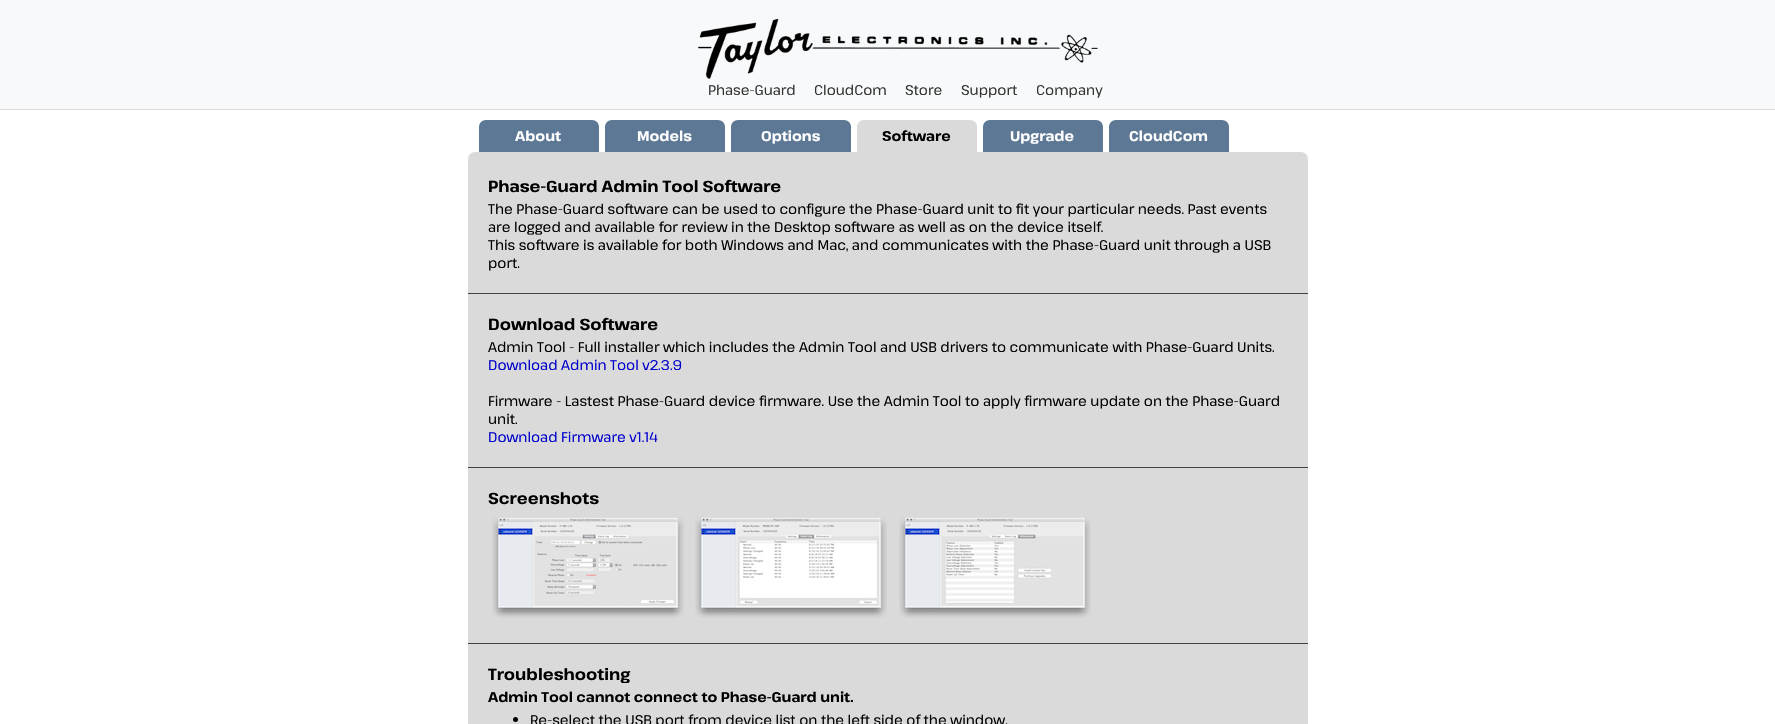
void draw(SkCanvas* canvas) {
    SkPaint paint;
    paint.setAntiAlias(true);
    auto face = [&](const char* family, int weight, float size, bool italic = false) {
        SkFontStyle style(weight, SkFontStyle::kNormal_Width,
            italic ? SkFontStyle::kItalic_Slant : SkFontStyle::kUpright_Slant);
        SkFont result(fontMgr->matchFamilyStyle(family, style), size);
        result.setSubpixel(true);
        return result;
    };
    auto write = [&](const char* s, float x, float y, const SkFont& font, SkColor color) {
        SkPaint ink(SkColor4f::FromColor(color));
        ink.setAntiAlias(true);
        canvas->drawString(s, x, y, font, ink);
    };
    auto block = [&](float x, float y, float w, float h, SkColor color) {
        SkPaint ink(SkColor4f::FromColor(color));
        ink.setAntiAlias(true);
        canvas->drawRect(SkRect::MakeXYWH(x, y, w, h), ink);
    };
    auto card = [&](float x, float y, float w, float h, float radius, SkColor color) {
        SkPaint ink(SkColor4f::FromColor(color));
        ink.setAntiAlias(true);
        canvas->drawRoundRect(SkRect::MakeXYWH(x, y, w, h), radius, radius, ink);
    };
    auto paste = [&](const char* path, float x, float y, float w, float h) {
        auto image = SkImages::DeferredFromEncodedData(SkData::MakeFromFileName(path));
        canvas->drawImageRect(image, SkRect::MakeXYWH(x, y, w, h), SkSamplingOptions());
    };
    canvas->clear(SK_ColorWHITE);
    block(0, 0, 1775, 109, SkColorSetRGB(248, 249, 250));
    block(0, 109, 1775, 1, SkColorSetRGB(221, 221, 221));
    paste("pic1.png", 698, 18, 400, 61);
    auto kFont1 = face("Pathway Extreme", 400, 14);
    write("Phase-Guard", 708, 95, kFont1, SkColorSetRGB(51, 51, 51));
    write("CloudCom", 814, 95, kFont1, SkColorSetRGB(51, 51, 51));
    write("Store", 905, 95, kFont1, SkColorSetRGB(51, 51, 51));
    write("Support", 961, 95, kFont1, SkColorSetRGB(51, 51, 51));
    write("Company", 1036, 95, kFont1, SkColorSetRGB(51, 51, 51));
    paint.setColor(SkColorSetRGB(93, 120, 149));
    canvas->drawPath(SkPathBuilder().moveTo(486, 120).lineTo(592, 120).cubicTo(596, 120, 599, 123, 599, 127).lineTo(599, 152).lineTo(479, 152).lineTo(479, 127).cubicTo(479, 123, 482, 120, 486, 120).close().detach(), paint);
    auto kFont2 = face("Pathway Extreme", 700, 14);
    write("About", 515, 141, kFont2, SK_ColorWHITE);
    canvas->drawPath(SkPathBuilder().moveTo(612, 120).lineTo(718, 120).cubicTo(722, 120, 725, 123, 725, 127).lineTo(725, 152).lineTo(605, 152).lineTo(605, 127).cubicTo(605, 123, 608, 120, 612, 120).close().detach(), paint);
    write("Models", 637, 141, kFont2, SK_ColorWHITE);
    canvas->drawPath(SkPathBuilder().moveTo(738, 120).lineTo(844, 120).cubicTo(848, 120, 851, 123, 851, 127).lineTo(851, 152).lineTo(731, 152).lineTo(731, 127).cubicTo(731, 123, 734, 120, 738, 120).close().detach(), paint);
    write("Options", 761, 141, kFont2, SK_ColorWHITE);
    paint.setColor(SkColorSetRGB(218, 218, 218));
    canvas->drawPath(SkPathBuilder().moveTo(864, 120).lineTo(970, 120).cubicTo(974, 120, 977, 123, 977, 127).lineTo(977, 152).lineTo(857, 152).lineTo(857, 127).cubicTo(857, 123, 860, 120, 864, 120).close().detach(), paint);
    write("Software", 882, 141, kFont2, SK_ColorBLACK);
    paint.setColor(SkColorSetRGB(93, 120, 149));
    canvas->drawPath(SkPathBuilder().moveTo(990, 120).lineTo(1096, 120).cubicTo(1100, 120, 1103, 123, 1103, 127).lineTo(1103, 152).lineTo(983, 152).lineTo(983, 127).cubicTo(983, 123, 986, 120, 990, 120).close().detach(), paint);
    write("Upgrade", 1010, 141, kFont2, SK_ColorWHITE);
    canvas->drawPath(SkPathBuilder().moveTo(1116, 120).lineTo(1222, 120).cubicTo(1226, 120, 1229, 123, 1229, 127).lineTo(1229, 152).lineTo(1109, 152).lineTo(1109, 127).cubicTo(1109, 123, 1112, 120, 1116, 120).close().detach(), paint);
    write("CloudCom", 1129, 141, kFont2, SK_ColorWHITE);
    card(468, 152, 840, 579, 7, SkColorSetRGB(218, 218, 218));
    auto kFont3 = face("Pathway Extreme", 700, 16);
    write("Phase-Guard Admin Tool Software", 488, 192, kFont3, SK_ColorBLACK);
    write("The Phase-Guard software can be used to configure the Phase-Guard unit to fit your particular needs. Past events", 488, 214, kFont1, SK_ColorBLACK);
    write("are logged and available for review in the Desktop software as well as on the device itself.", 488, 232, kFont1, SK_ColorBLACK);
    write("This software is available for both Windows and Mac, and communicates with the Phase-Guard unit through a USB", 488, 250, kFont1, SK_ColorBLACK);
    write("port.", 488, 268, kFont1, SK_ColorBLACK);
    block(468, 293, 840, 1, SkColorSetRGB(68, 68, 68));
    write("Download Software", 488, 330, kFont3, SK_ColorBLACK);
    write("Admin Tool - Full installer which includes the Admin Tool and USB drivers to communicate with Phase-Guard Units.", 488, 352, kFont1, SK_ColorBLACK);
    write("Download Admin Tool v2.3.9", 488, 370, kFont1, SkColorSetRGB(0, 0, 204));
    write("Firmware - Lastest Phase-Guard device firmware. Use the Admin Tool to apply firmware update on the Phase-Guard", 488, 406, kFont1, SK_ColorBLACK);
    write("unit.", 488, 424, kFont1, SK_ColorBLACK);
    write("Download Firmware v1.14", 488, 442, kFont1, SkColorSetRGB(0, 0, 204));
    block(468, 467, 840, 1, SkColorSetRGB(68, 68, 68));
    write("Screenshots", 488, 504, kFont3, SK_ColorBLACK);
    paste("pic2.png", 492, 517, 192, 101);
    paste("pic3.png", 695, 517, 192, 101);
    paste("pic4.png", 899, 517, 192, 101);
    block(468, 643, 840, 1, SkColorSetRGB(68, 68, 68));
    write("Troubleshooting", 488, 680, kFont3, SK_ColorBLACK);
    write("Admin Tool cannot connect to Phase-Guard unit.", 488, 702, kFont2, SK_ColorBLACK);
    paint.setColor(SK_ColorBLACK);
    canvas->drawCircle(515.5f, 719.5f, 2.5f, paint);
    write("Re-select the USB port from device list on the left side of the window.", 530, 725, kFont1, SK_ColorBLACK);
}
